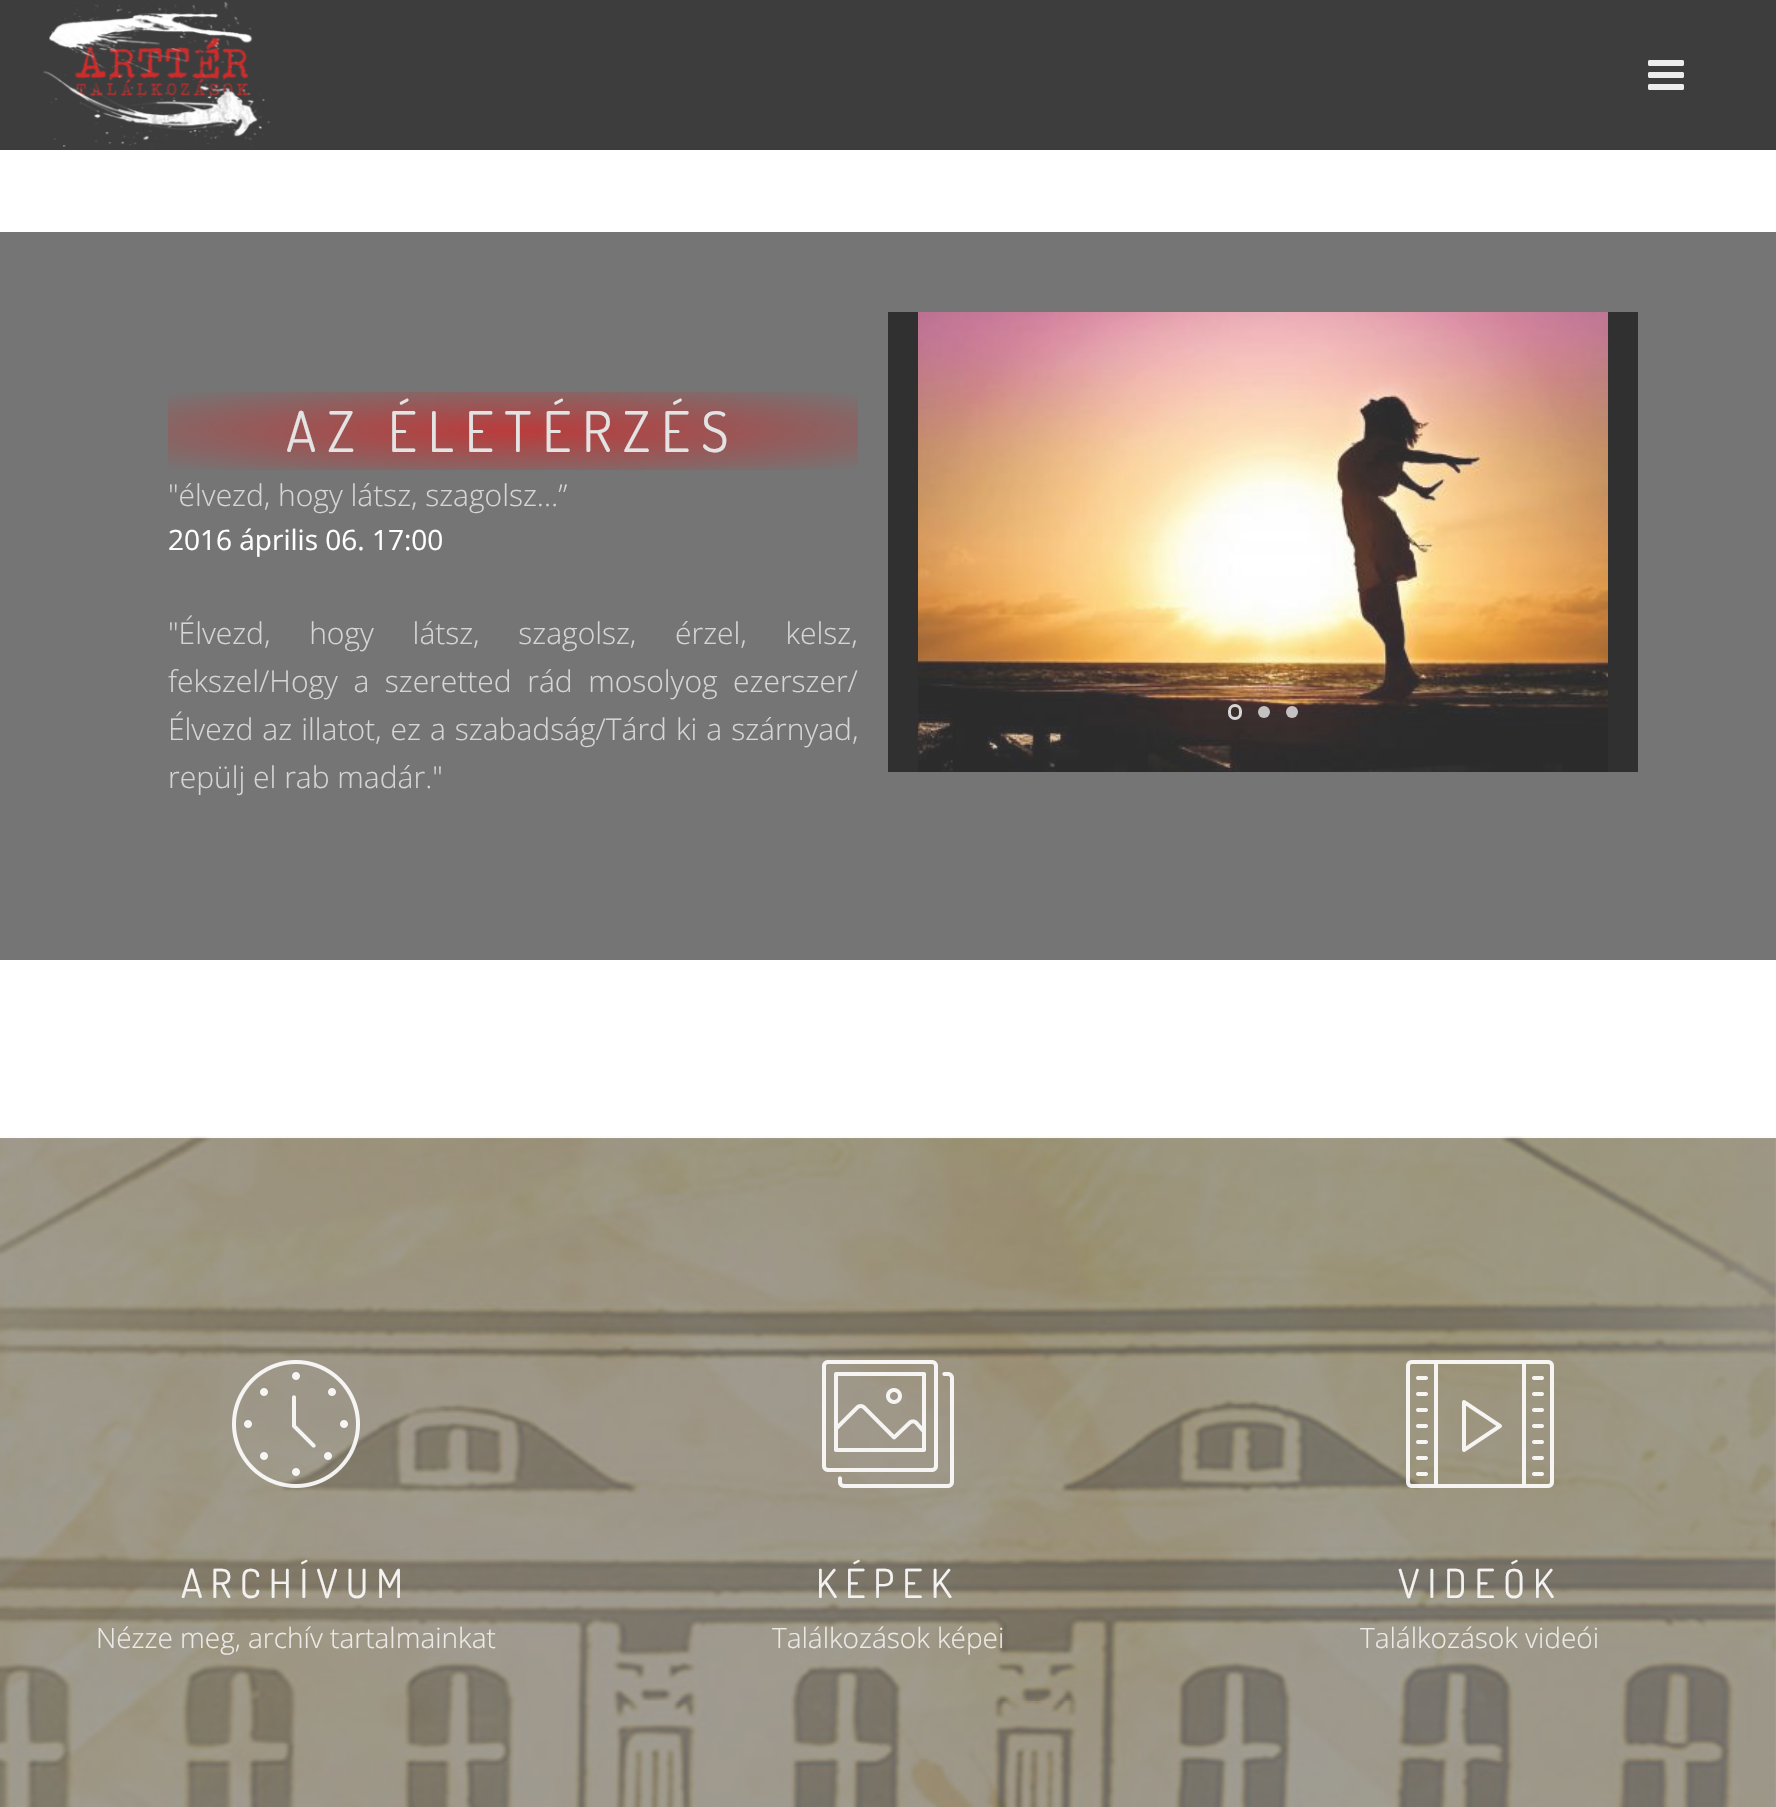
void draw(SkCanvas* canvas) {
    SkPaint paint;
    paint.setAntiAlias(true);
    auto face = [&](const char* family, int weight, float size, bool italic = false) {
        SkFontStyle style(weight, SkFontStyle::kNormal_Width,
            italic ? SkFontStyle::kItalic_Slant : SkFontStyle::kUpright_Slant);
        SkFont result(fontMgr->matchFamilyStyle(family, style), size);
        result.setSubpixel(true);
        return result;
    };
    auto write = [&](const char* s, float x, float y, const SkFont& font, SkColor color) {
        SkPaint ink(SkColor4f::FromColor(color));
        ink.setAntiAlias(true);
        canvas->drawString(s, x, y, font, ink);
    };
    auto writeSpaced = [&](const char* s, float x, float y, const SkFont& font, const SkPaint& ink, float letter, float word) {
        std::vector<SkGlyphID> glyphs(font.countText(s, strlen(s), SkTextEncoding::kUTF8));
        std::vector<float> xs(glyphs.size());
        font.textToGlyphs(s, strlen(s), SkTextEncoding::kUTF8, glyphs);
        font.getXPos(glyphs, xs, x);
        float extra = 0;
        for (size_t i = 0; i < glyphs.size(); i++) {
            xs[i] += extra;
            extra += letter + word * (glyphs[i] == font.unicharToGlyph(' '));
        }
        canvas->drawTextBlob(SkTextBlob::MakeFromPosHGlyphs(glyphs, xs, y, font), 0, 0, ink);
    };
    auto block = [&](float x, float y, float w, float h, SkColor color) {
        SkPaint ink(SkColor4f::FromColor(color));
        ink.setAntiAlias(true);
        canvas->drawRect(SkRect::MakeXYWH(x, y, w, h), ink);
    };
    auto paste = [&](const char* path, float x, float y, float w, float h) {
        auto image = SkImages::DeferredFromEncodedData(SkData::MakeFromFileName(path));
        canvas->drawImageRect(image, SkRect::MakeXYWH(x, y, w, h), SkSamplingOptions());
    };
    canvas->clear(SK_ColorWHITE);
    block(0, 1138, 1776, 669, SkColorSetRGB(164, 164, 164));
    block(0, 0, 1776, 150, SkColorSetRGB(61, 61, 61));
    paste("pic1.png", 43, 2, 227, 145);
    paste("pic2.png", 1648, 60, 36, 30);
    block(0, 232, 1776, 728, SkColorSetRGB(117, 117, 117));
    {
        const SkColor colors[] = {SkColorSetRGB(187, 59, 59), SkColorSetRGB(117, 117, 117)};
        const float stops[] = {0, 1};
        SkMatrix m = SkMatrix::Translate(513, 431).preScale(488, 55);
        paint.setShader(SkGradientShader::MakeRadial({0, 0}, 1, colors, stops, 2, SkTileMode::kClamp, 0, &m));
        paint.setAlpha(255);
    }
    canvas->drawRect(SkRect::MakeXYWH(168, 392, 690, 78), paint);
    auto kFont1 = face("Dosis", 400, 56);
    paint.setShader(nullptr);
    paint.setColor(SkColorSetRGB(227, 227, 227));
    writeSpaced("AZ ÉLETÉRZÉS", 286, 452, kFont1, paint, 11.25f, 0);
    auto kFont2 = face("Open Sans", 300, 30);
    write("\"élvezd, hogy látsz, szagolsz…”", 168, 506, kFont2, SkColorSetRGB(213, 213, 213));
    auto kFont3 = face("Open Sans", 400, 28);
    write("2016 április 06. 17:00", 168, 550, kFont3, SK_ColorWHITE);
    paint.setColor(SkColorSetRGB(213, 213, 213));
    writeSpaced("\"Élvezd, hogy látsz, szagolsz, érzel, kelsz,", 168, 644, kFont2, paint, 0, 31);
    writeSpaced("fekszel/Hogy a szeretted rád mosolyog ezerszer/", 168, 692, kFont2, paint, 0, 7.75f);
    writeSpaced("Élvezd az illatot, ez a szabadság/Tárd ki a szárnyad,", 168, 740, kFont2, paint, 0, 1.25f);
    write("repülj el rab madár.\"", 168, 788, kFont2, SkColorSetRGB(213, 213, 213));
    block(888, 312, 750, 460, SkColorSetRGB(48, 48, 48));
    paste("pic3.png", 918, 312, 690, 460);
    paint.setStyle(SkPaint::kStroke_Style);
    paint.setStrokeWidth(3);
    paint.setColor(SkColorSetARGB(204, 255, 255, 255));
    canvas->drawRoundRect(SkRect::MakeXYWH(1229.5f, 705.5f, 11, 13), 5.5f, 5.5f, paint);
    paint.setStyle(SkPaint::kFill_Style);
    paint.setColor(SkColorSetARGB(179, 255, 255, 255));
    canvas->drawCircle(1264, 712, 6, paint);
    canvas->drawCircle(1292, 712, 6, paint);
    paste("pic4.png", 0, 1136, 1776, 671);
    paste("pic5.png", 232, 1360, 128, 128);
    auto kFont4 = face("Dosis", 400, 40);
    paint.setColor(SkColorSetRGB(243, 242, 241));
    writeSpaced("ARCHÍVUM", 181, 1598, kFont4, paint, 8, 0);
    auto kFont5 = face("Open Sans", 300, 28);
    write("Nézze meg, archív tartalmainkat", 96, 1648, kFont5, SkColorSetRGB(236, 234, 231));
    paste("pic6.png", 822, 1360, 132, 128);
    writeSpaced("KÉPEK", 816, 1598, kFont4, paint, 8, 0);
    write("Találkozások képei", 772, 1648, kFont5, SkColorSetRGB(236, 234, 231));
    paste("pic7.png", 1406, 1360, 148, 128);
    writeSpaced("VIDEÓK", 1398, 1598, kFont4, paint, 8, 0);
    write("Találkozások videói", 1360, 1648, kFont5, SkColorSetRGB(236, 234, 231));
}
